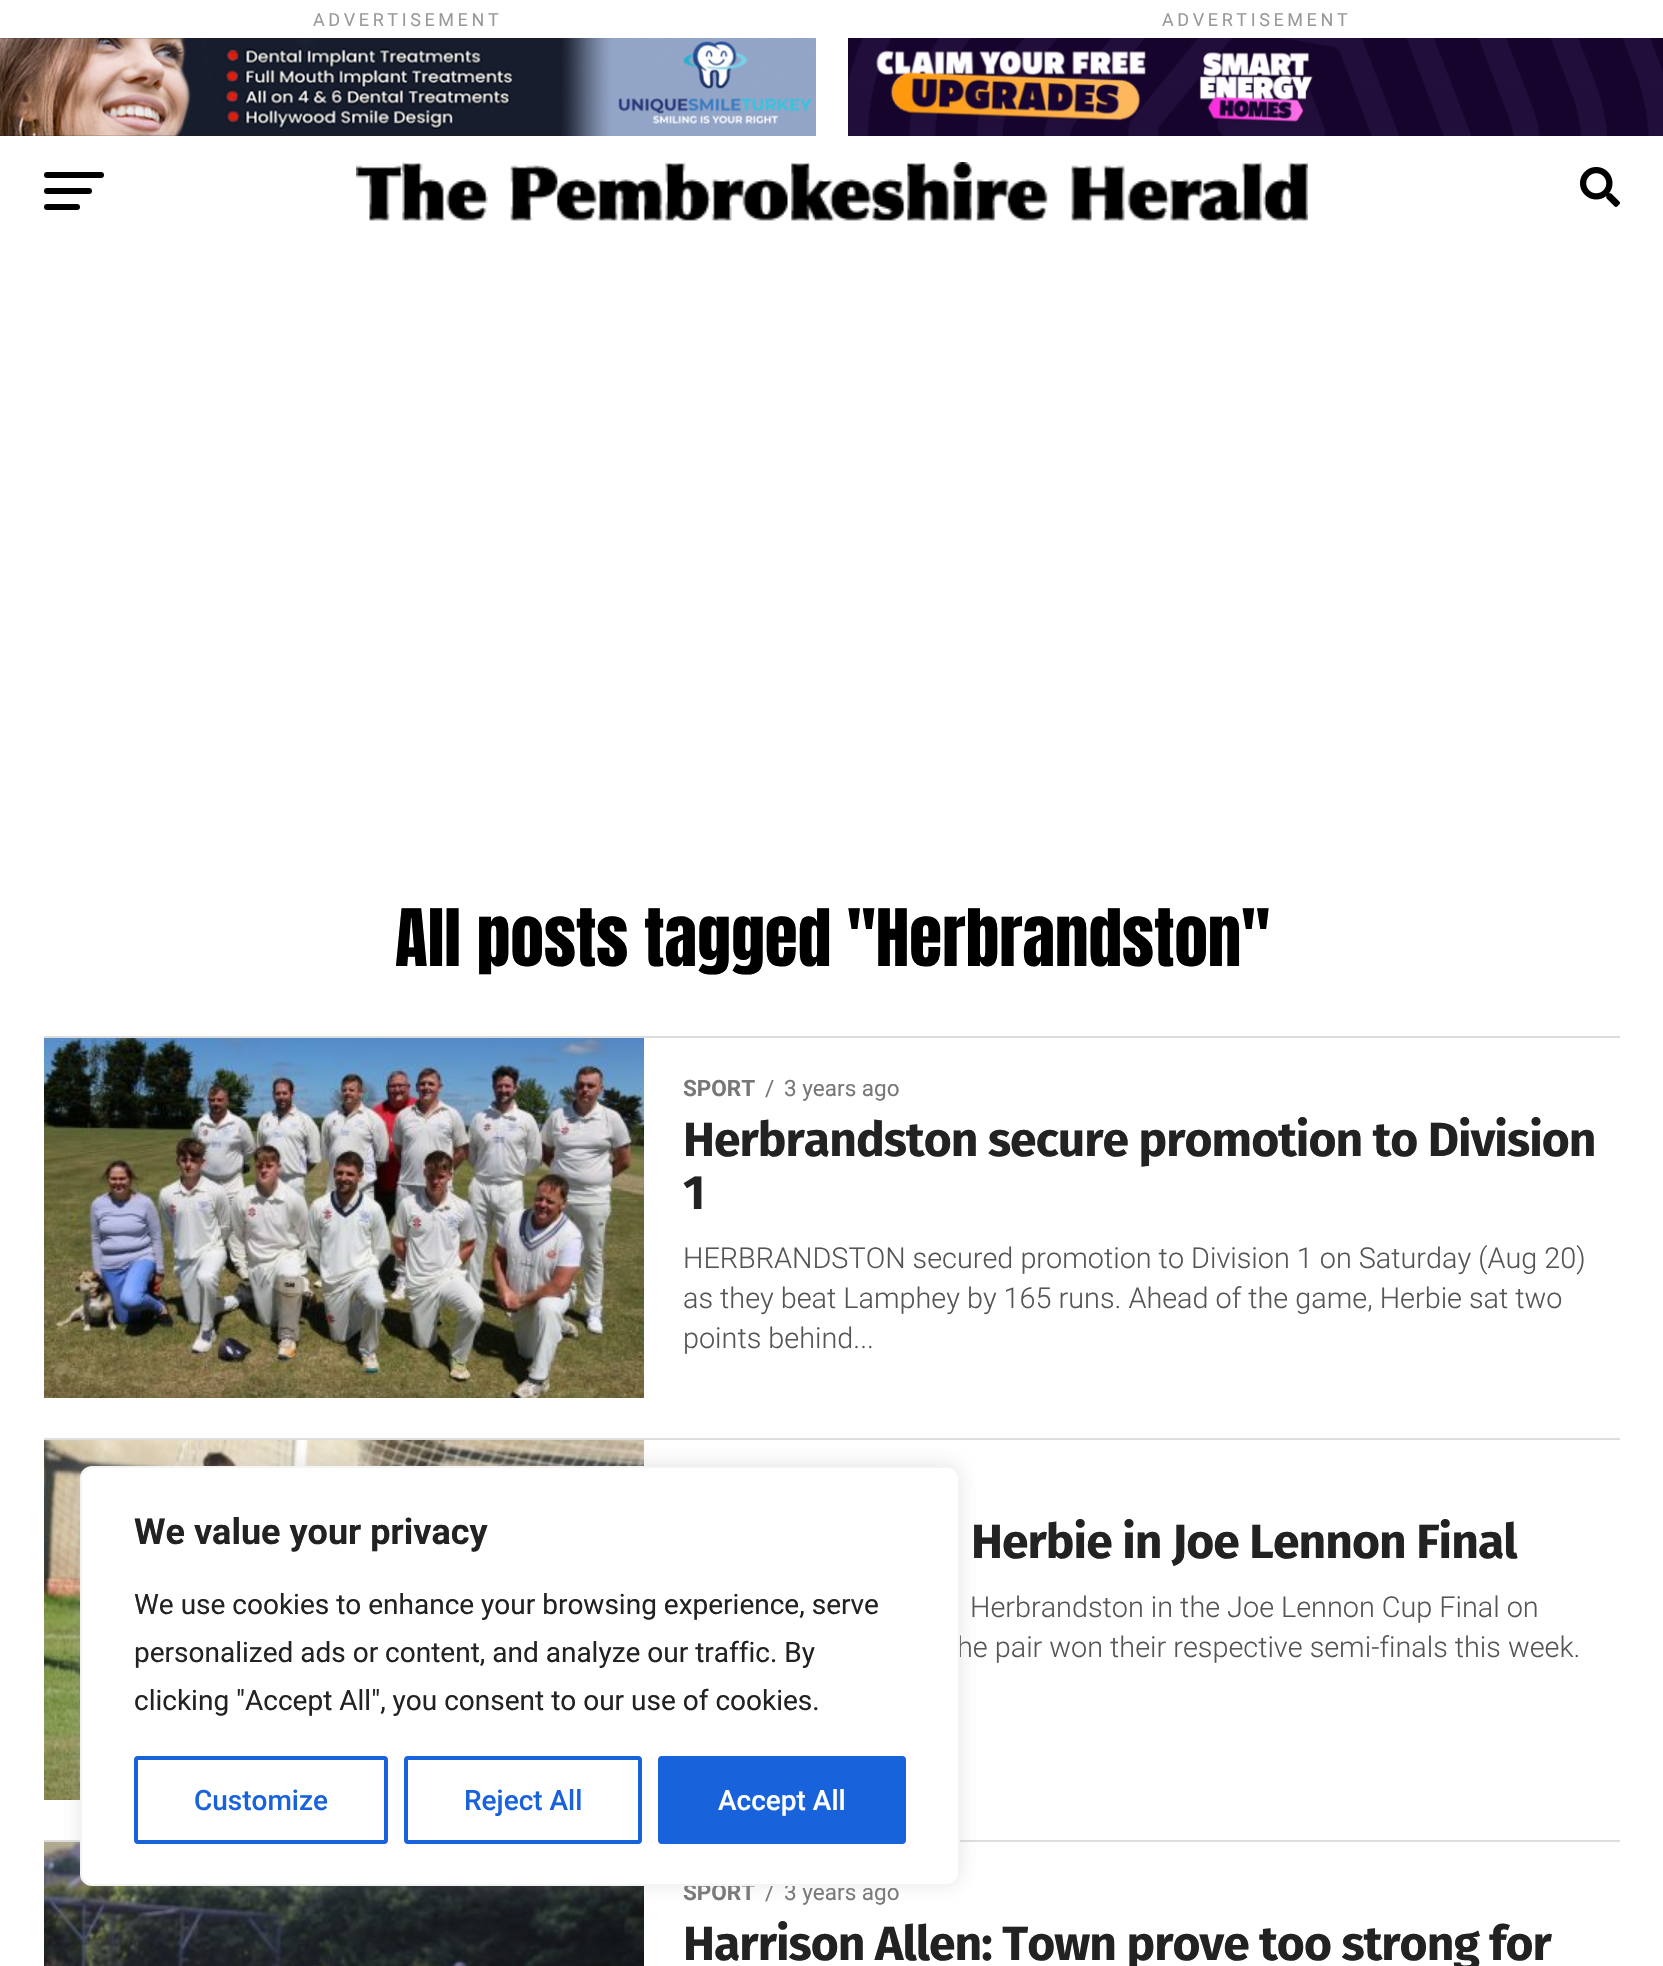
void draw(SkCanvas* canvas) {
    SkPaint paint;
    paint.setAntiAlias(true);
    auto face = [&](const char* family, int weight, float size, bool italic = false) {
        SkFontStyle style(weight, SkFontStyle::kNormal_Width,
            italic ? SkFontStyle::kItalic_Slant : SkFontStyle::kUpright_Slant);
        SkFont result(fontMgr->matchFamilyStyle(family, style), size);
        result.setSubpixel(true);
        return result;
    };
    auto write = [&](const char* s, float x, float y, const SkFont& font, SkColor color) {
        SkPaint ink(SkColor4f::FromColor(color));
        ink.setAntiAlias(true);
        canvas->drawString(s, x, y, font, ink);
    };
    auto writeSpaced = [&](const char* s, float x, float y, const SkFont& font, const SkPaint& ink, float letter, float word) {
        std::vector<SkGlyphID> glyphs(font.countText(s, strlen(s), SkTextEncoding::kUTF8));
        std::vector<float> xs(glyphs.size());
        font.textToGlyphs(s, strlen(s), SkTextEncoding::kUTF8, glyphs);
        font.getXPos(glyphs, xs, x);
        float extra = 0;
        for (size_t i = 0; i < glyphs.size(); i++) {
            xs[i] += extra;
            extra += letter + word * (glyphs[i] == font.unicharToGlyph(' '));
        }
        canvas->drawTextBlob(SkTextBlob::MakeFromPosHGlyphs(glyphs, xs, y, font), 0, 0, ink);
    };
    auto block = [&](float x, float y, float w, float h, SkColor color) {
        SkPaint ink(SkColor4f::FromColor(color));
        ink.setAntiAlias(true);
        canvas->drawRect(SkRect::MakeXYWH(x, y, w, h), ink);
    };
    auto card = [&](float x, float y, float w, float h, float radius, SkColor color) {
        SkPaint ink(SkColor4f::FromColor(color));
        ink.setAntiAlias(true);
        canvas->drawRoundRect(SkRect::MakeXYWH(x, y, w, h), radius, radius, ink);
    };
    auto paste = [&](const char* path, float x, float y, float w, float h) {
        auto image = SkImages::DeferredFromEncodedData(SkData::MakeFromFileName(path));
        canvas->drawImageRect(image, SkRect::MakeXYWH(x, y, w, h), SkSamplingOptions());
    };
    canvas->clear(SK_ColorWHITE);
    auto kFont1 = face("Roboto", 400, 18);
    paint.setColor(SkColorSetRGB(153, 153, 153));
    writeSpaced("ADVERTISEMENT", 313, 26, kFont1, paint, 3.6f, 0);
    paste("pic1.png", 0, 38, 816, 98);
    writeSpaced("ADVERTISEMENT", 1162, 26, kFont1, paint, 3.6f, 0);
    paste("pic2.png", 848, 38, 815, 98);
    card(44, 172, 60, 6, 3, SK_ColorBLACK);
    card(44, 188, 48, 6, 3, SK_ColorBLACK);
    card(44, 204, 36, 6, 3, SK_ColorBLACK);
    paste("pic3.png", 356, 162, 952, 59);
    paste("pic4.png", 1580, 167, 40, 40);
    auto kFont2 = face("Anton", 400, 67.25f);
    write("All posts tagged \"Herbrandston\"", 395, 966, kFont2, SK_ColorBLACK);
    block(44, 1036, 1576, 2, SkColorSetRGB(221, 221, 221));
    paste("pic5.png", 44, 1038, 600, 360);
    auto kFont3 = face("Roboto", 700, 22.5f);
    write("SPORT", 683, 1096, kFont3, SkColorSetRGB(119, 119, 119));
    auto kFont4 = face("Roboto", 400, 22.5f);
    write("/", 765, 1096, kFont4, SkColorSetRGB(119, 119, 119));
    write("3 years ago", 784, 1096, kFont4, SkColorSetRGB(119, 119, 119));
    auto kFont5 = face("Fira Sans", 700, 48);
    paint.setColor(SkColorSetRGB(34, 34, 34));
    writeSpaced("Herbrandston secure promotion to Division", 683, 1156, kFont5, paint, -0.95f, 0);
    writeSpaced("1", 683, 1209, kFont5, paint, -0.95f, 0);
    auto kFont6 = face("Roboto", 300, 28.8f);
    write("HERBRANDSTON secured promotion to Division 1 on Saturday (Aug 20)", 683, 1268, kFont6, SkColorSetRGB(85, 85, 85));
    write("as they beat Lamphey by 165 runs. Ahead of the game, Herbie sat two", 683, 1308, kFont6, SkColorSetRGB(85, 85, 85));
    write("points behind...", 683, 1348, kFont6, SkColorSetRGB(85, 85, 85));
    block(44, 1438, 1576, 2, SkColorSetRGB(221, 221, 221));
    paste("pic6.png", 44, 1440, 600, 360);
    writeSpaced("Herbie in Joe Lennon Final", 971, 1558, kFont5, paint, -0.95f, 0);
    write("Herbrandston in the Joe Lennon Cup Final on", 970, 1617, kFont6, SkColorSetRGB(85, 85, 85));
    write("he pair won their respective semi-finals this week.", 957, 1657, kFont6, SkColorSetRGB(85, 85, 85));
    block(44, 1840, 1576, 2, SkColorSetRGB(221, 221, 221));
    paste("pic7.png", 44, 1842, 600, 124);
    write("SPORT", 683, 1900, kFont3, SkColorSetRGB(119, 119, 119));
    write("/", 765, 1900, kFont4, SkColorSetRGB(119, 119, 119));
    write("3 years ago", 784, 1900, kFont4, SkColorSetRGB(119, 119, 119));
    writeSpaced("Harrison Allen: Town prove too strong for", 683, 1960, kFont5, paint, -0.95f, 0);
    paint.setColor(SkColorSetARGB(77, 172, 171, 171));
    paint.setMaskFilter(SkMaskFilter::MakeBlur(kNormal_SkBlurStyle, 10));
    canvas->drawRoundRect(SkRect::MakeXYWH(80, 1464, 880, 420), 12, 12, paint);
    paint.setMaskFilter(nullptr);
    paint.setColor(SK_ColorWHITE);
    canvas->drawRoundRect(SkRect::MakeXYWH(81, 1467, 878, 418), 11, 11, paint);
    paint.setStyle(SkPaint::kStroke_Style);
    paint.setStrokeWidth(2);
    paint.setColor(SkColorSetRGB(244, 244, 244));
    canvas->drawRoundRect(SkRect::MakeXYWH(81, 1467, 878, 418), 11, 11, paint);
    auto kFont7 = face("Roboto", 700, 36);
    write("We value your privacy", 134, 1544, kFont7, SkColorSetRGB(34, 34, 34));
    auto kFont8 = face("Roboto", 400, 28);
    write("We use cookies to enhance your browsing experience, serve", 134, 1614, kFont8, SkColorSetRGB(34, 34, 34));
    write("personalized ads or content, and analyze our traffic. By", 134, 1662, kFont8, SkColorSetRGB(34, 34, 34));
    write("clicking \"Accept All\", you consent to our use of cookies.", 134, 1710, kFont8, SkColorSetRGB(34, 34, 34));
    paint.setStrokeWidth(4);
    paint.setColor(SkColorSetRGB(24, 99, 220));
    canvas->drawRoundRect(SkRect::MakeXYWH(136, 1758, 250, 84), 2, 2, paint);
    auto kFont9 = face("Roboto", 500, 28);
    write("Customize", 194, 1810, kFont9, SkColorSetRGB(24, 99, 220));
    canvas->drawRoundRect(SkRect::MakeXYWH(406, 1758, 234, 84), 2, 2, paint);
    write("Reject All", 464, 1810, kFont9, SkColorSetRGB(24, 99, 220));
    paint.setStyle(SkPaint::kFill_Style);
    canvas->drawRoundRect(SkRect::MakeXYWH(660, 1758, 244, 84), 2, 2, paint);
    paint.setStyle(SkPaint::kStroke_Style);
    canvas->drawRoundRect(SkRect::MakeXYWH(660, 1758, 244, 84), 2, 2, paint);
    write("Accept All", 718, 1810, kFont9, SK_ColorWHITE);
}
